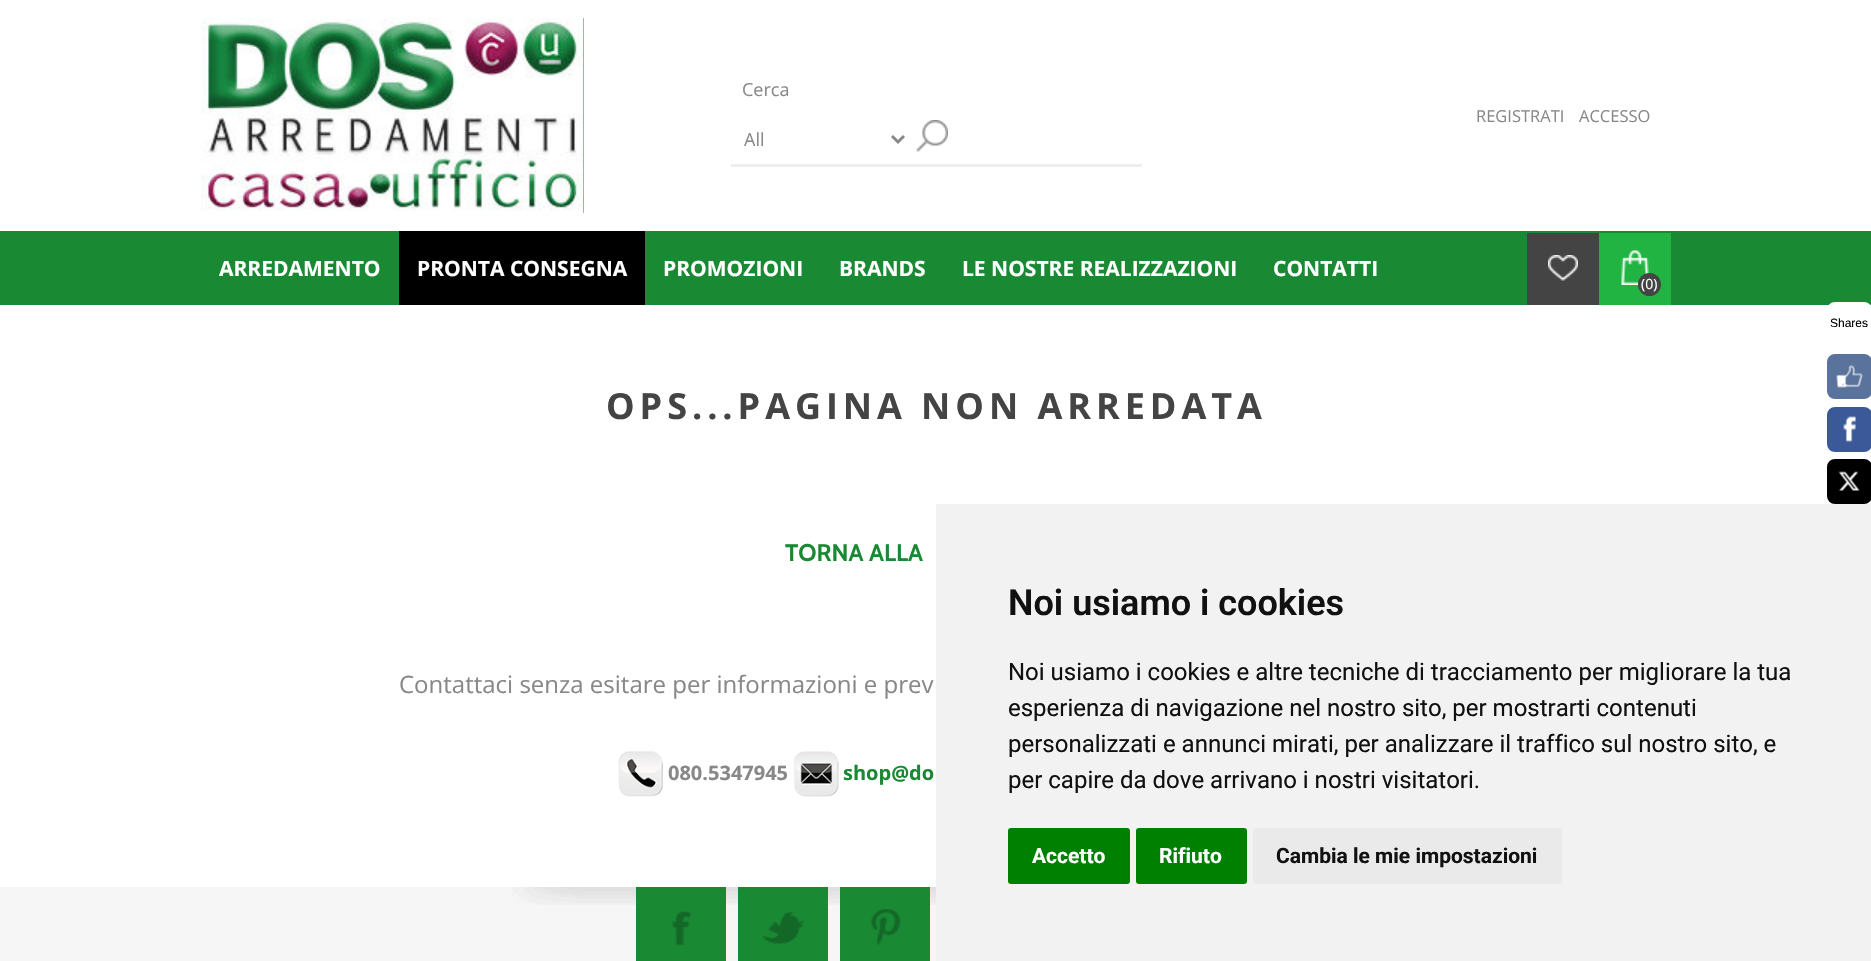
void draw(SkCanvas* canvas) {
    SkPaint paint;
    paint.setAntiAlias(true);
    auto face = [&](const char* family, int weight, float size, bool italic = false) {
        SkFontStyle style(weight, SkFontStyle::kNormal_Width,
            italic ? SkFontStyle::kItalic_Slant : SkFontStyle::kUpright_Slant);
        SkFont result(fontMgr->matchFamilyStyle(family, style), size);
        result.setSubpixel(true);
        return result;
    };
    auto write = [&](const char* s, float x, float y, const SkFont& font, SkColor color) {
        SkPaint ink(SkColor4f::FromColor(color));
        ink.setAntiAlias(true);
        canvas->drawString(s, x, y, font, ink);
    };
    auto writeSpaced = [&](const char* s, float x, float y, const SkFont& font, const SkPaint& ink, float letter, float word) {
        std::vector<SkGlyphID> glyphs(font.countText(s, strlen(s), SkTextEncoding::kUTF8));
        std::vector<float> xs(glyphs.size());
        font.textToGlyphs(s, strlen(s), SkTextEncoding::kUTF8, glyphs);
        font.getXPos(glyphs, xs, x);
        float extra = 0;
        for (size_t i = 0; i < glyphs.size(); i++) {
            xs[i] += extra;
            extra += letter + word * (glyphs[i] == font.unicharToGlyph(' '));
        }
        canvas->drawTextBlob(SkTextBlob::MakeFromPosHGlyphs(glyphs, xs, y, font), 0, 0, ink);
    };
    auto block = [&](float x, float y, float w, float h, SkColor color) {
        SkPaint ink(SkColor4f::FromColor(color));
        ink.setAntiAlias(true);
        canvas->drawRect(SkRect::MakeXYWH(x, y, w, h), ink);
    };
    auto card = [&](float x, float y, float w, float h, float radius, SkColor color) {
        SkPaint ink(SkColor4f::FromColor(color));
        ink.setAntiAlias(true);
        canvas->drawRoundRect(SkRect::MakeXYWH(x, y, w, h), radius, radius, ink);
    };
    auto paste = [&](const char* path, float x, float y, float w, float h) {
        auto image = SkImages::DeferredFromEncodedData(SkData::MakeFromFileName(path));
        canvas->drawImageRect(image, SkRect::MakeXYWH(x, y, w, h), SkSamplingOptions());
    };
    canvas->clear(SK_ColorWHITE);
    block(583, 18, 1, 195, SkColorSetRGB(25, 137, 51));
    paste("pic1.png", 201, 18, 383, 195);
    block(731, 164, 411, 3, SkColorSetRGB(238, 238, 238));
    auto kFont1 = face("Open Sans", 400, 18);
    write("Cerca", 742, 96, kFont1, SkColorSetRGB(136, 136, 136));
    paint.setStyle(SkPaint::kStroke_Style);
    paint.setStrokeWidth(3);
    paint.setColor(SkColorSetRGB(136, 136, 136));
    canvas->drawPath(SkPathBuilder().moveTo(892, 136).lineTo(898, 142).lineTo(904, 136).detach(), paint);
    write("All", 744, 146, kFont1, SkColorSetRGB(136, 136, 136));
    paste("pic2.png", 916, 120, 32, 32);
    auto kFont2 = face("Open Sans", 400, 16.5f);
    write("REGISTRATI", 1476, 122, kFont2, SkColorSetRGB(136, 136, 136));
    write("ACCESSO", 1579, 122, kFont2, SkColorSetRGB(136, 136, 136));
    block(0, 231, 1871, 74, SkColorSetRGB(25, 137, 51));
    auto kFont3 = face("Open Sans", 700, 21);
    write("ARREDAMENTO", 219, 276, kFont3, SK_ColorWHITE);
    block(399, 231, 246, 74, SK_ColorBLACK);
    write("PRONTA CONSEGNA", 417, 276, kFont3, SK_ColorWHITE);
    write("PROMOZIONI", 663, 276, kFont3, SK_ColorWHITE);
    write("BRANDS", 839, 276, kFont3, SK_ColorWHITE);
    write("LE NOSTRE REALIZZAZIONI", 962, 276, kFont3, SK_ColorWHITE);
    write("CONTATTI", 1273, 276, kFont3, SK_ColorWHITE);
    block(1527, 233, 72, 72, SkColorSetRGB(68, 68, 68));
    paste("pic3.png", 1548, 255, 30, 26);
    block(1599, 233, 72, 72, SkColorSetRGB(33, 180, 67));
    paste("pic4.png", 1621, 250, 28, 35);
    paint.setStyle(SkPaint::kFill_Style);
    paint.setColor(SkColorSetRGB(68, 68, 68));
    canvas->drawCircle(1649.5f, 284.5f, 11.5f, paint);
    auto kFont4 = face("Open Sans", 400, 14);
    write("(0)", 1641, 289, kFont4, SK_ColorWHITE);
    auto kFont5 = face("Open Sans", 700, 36);
    writeSpaced("OPS...PAGINA NON ARREDATA", 606, 419, kFont5, paint, 4.95f, 0);
    auto kFont6 = face("Cabin", 700, 24);
    write("TORNA ALLA", 785, 561, kFont6, SkColorSetRGB(25, 137, 51));
    auto kFont7 = face("Open Sans", 400, 24);
    write("Contattaci senza esitare per informazioni e prev", 399, 693, kFont7, SkColorSetRGB(136, 136, 136));
    paste("pic5.png", 618, 751, 45, 46);
    auto kFont8 = face("Open Sans", 700, 20);
    write("080.5347945", 668, 780, kFont8, SkColorSetRGB(136, 136, 136));
    paste("pic6.png", 793, 751, 46, 46);
    write("shop@do", 843, 780, kFont8, SkColorSetRGB(25, 137, 51));
    block(0, 887, 936, 74, SkColorSetRGB(246, 246, 246));
    paste("pic7.png", 512, 887, 424, 18);
    block(636, 887, 90, 74, SkColorSetRGB(25, 137, 51));
    paste("pic8.png", 672, 911, 20, 35);
    block(738, 887, 90, 74, SkColorSetRGB(25, 137, 51));
    paste("pic9.png", 762, 912, 42, 32);
    block(840, 887, 90, 74, SkColorSetRGB(25, 137, 51));
    paste("pic10.png", 871, 909, 30, 36);
    card(1827, 302, 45, 45, 8, SK_ColorWHITE);
    auto kFont9 = face("Liberation Sans", 400, 12);
    write("Shares", 1830, 327, kFont9, SK_ColorBLACK);
    card(1827, 354, 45, 45, 8, SkColorSetRGB(90, 115, 157));
    paste("pic11.png", 1836, 365, 27, 23);
    card(1827, 407, 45, 45, 8, SkColorSetRGB(59, 89, 152));
    paste("pic12.png", 1843, 416, 13, 26);
    card(1827, 459, 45, 45, 8, SK_ColorBLACK);
    paste("pic13.png", 1838, 471, 22, 20);
    block(936, 504, 935, 457, SkColorSetRGB(242, 242, 242));
    auto kFont10 = face("Roboto", 600, 36);
    write("Noi usiamo i cookies", 1008, 615, kFont10, SkColorSetRGB(17, 17, 17));
    auto kFont11 = face("Roboto", 400, 24);
    write("Noi usiamo i cookies e altre tecniche di tracciamento per migliorare la tua", 1008, 680, kFont11, SkColorSetRGB(17, 17, 17));
    write("esperienza di navigazione nel nostro sito, per mostrarti contenuti", 1008, 716, kFont11, SkColorSetRGB(17, 17, 17));
    write("personalizzati e annunci mirati, per analizzare il traffico sul nostro sito, e", 1008, 752, kFont11, SkColorSetRGB(17, 17, 17));
    write("per capire da dove arrivano i nostri visitatori.", 1008, 788, kFont11, SkColorSetRGB(17, 17, 17));
    card(1008, 828, 122, 56, 3, SkColorSetRGB(0, 128, 0));
    auto kFont12 = face("Roboto", 700, 21);
    write("Accetto", 1032, 863, kFont12, SK_ColorWHITE);
    card(1136, 828, 111, 56, 3, SkColorSetRGB(0, 128, 0));
    write("Rifiuto", 1159, 863, kFont12, SK_ColorWHITE);
    card(1253, 828, 309, 56, 3, SkColorSetRGB(234, 234, 234));
    write("Cambia le mie impostazioni", 1276, 863, kFont12, SkColorSetRGB(17, 17, 17));
}
